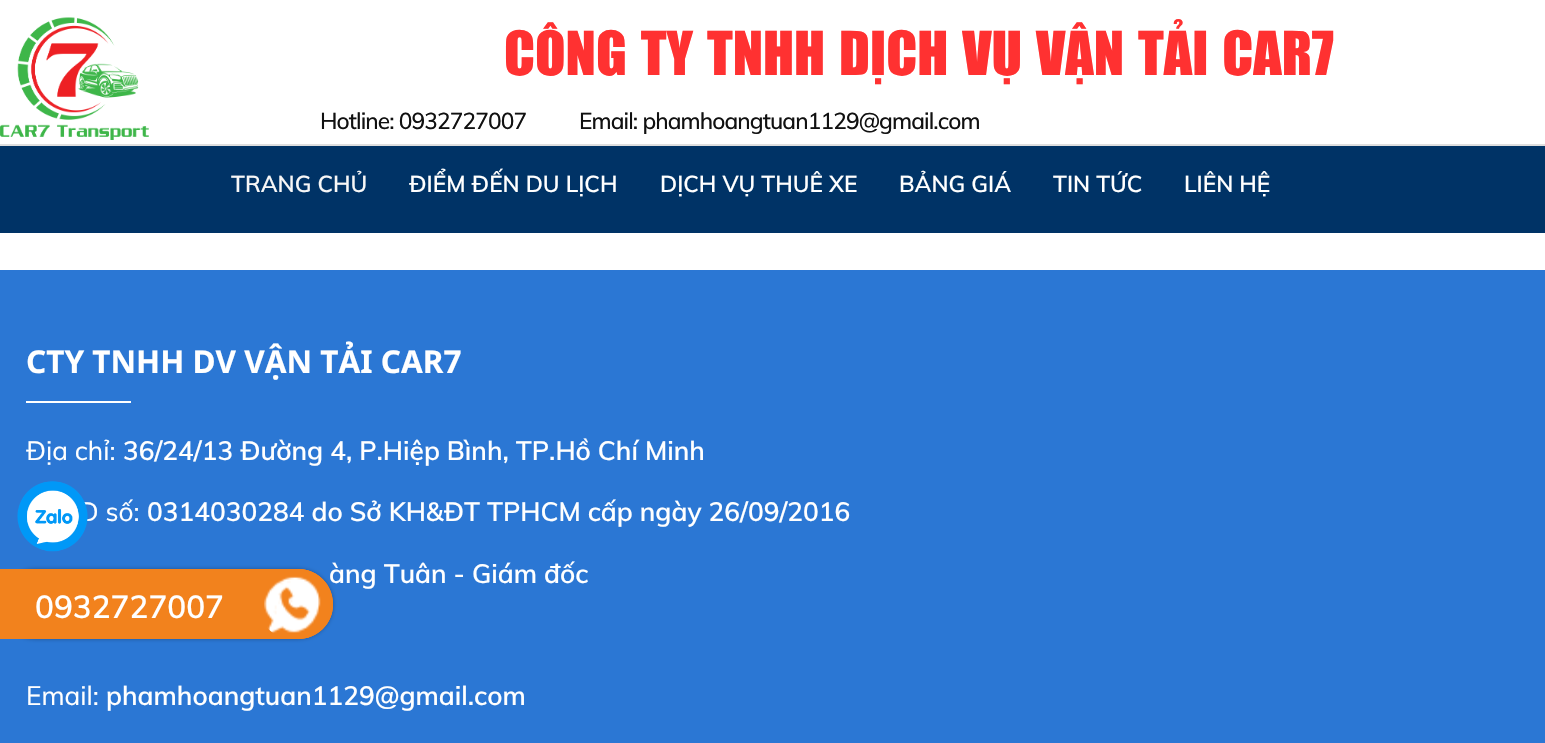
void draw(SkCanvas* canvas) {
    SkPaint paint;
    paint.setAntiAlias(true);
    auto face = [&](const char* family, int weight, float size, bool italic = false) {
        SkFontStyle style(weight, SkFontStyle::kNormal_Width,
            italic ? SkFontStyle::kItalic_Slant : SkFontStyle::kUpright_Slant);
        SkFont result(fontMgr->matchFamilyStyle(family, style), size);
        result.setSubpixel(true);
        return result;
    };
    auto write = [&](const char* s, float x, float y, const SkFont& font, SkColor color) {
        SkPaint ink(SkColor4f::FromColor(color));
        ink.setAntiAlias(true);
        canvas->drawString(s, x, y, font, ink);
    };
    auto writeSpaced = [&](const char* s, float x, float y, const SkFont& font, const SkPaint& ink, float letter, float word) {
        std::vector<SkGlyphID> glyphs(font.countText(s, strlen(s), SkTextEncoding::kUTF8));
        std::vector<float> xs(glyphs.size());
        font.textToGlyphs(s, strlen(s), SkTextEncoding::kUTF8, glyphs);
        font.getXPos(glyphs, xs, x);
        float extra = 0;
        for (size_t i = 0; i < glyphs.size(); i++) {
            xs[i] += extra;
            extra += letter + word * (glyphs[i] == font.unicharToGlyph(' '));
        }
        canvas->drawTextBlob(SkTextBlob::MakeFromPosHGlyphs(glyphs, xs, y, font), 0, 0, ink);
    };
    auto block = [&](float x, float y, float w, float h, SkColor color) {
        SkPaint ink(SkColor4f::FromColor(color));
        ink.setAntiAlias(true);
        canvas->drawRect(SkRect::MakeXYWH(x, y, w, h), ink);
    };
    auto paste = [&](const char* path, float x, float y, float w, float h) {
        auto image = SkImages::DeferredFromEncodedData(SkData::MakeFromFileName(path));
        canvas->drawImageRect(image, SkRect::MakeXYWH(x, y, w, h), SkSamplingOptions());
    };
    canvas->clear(SK_ColorWHITE);
    block(0, 144, 1545, 2, SkColorSetRGB(222, 222, 222));
    paste("pic1.png", 0, 17, 149, 123);
    auto kFont1 = face("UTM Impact", 400, 56);
    write("CÔNG TY TNHH DỊCH VỤ VẬN TẢI CAR7", 504, 75, kFont1, SkColorSetRGB(255, 49, 49));
    auto kFont2 = face("Muli", 500, 22.75f);
    paint.setColor(SkColorSetRGB(17, 17, 17));
    writeSpaced("Hotline: 0932727007", 320, 129, kFont2, paint, -0.9f, 0);
    writeSpaced("Email: phamhoangtuan1129@gmail.com", 579, 129, kFont2, paint, -0.9f, 0);
    block(0, 146, 1545, 87, SkColorSetRGB(0, 51, 102));
    auto kFont3 = face("Muli", 600, 22.75f);
    write("TRANG CHỦ", 231, 192, kFont3, SkColorSetRGB(247, 247, 247));
    write("ĐIỂM ĐẾN DU LỊCH", 409, 192, kFont3, SK_ColorWHITE);
    write("DỊCH VỤ THUÊ XE", 660, 192, kFont3, SK_ColorWHITE);
    write("BẢNG GIÁ", 899, 192, kFont3, SK_ColorWHITE);
    write("TIN TỨC", 1053, 192, kFont3, SK_ColorWHITE);
    write("LIÊN HỆ", 1184, 192, kFont3, SK_ColorWHITE);
    block(0, 270, 1545, 473, SkColorSetRGB(43, 119, 212));
    auto kFont4 = face("Noto Sans", 700, 31.5f);
    write("CTY TNHH DV VẬN TẢI CAR7", 26, 373, kFont4, SK_ColorWHITE);
    block(26, 401, 105, 2, SK_ColorWHITE);
    auto kFont5 = face("Muli", 400, 26.25f);
    write("Địa chỉ:", 26, 460, kFont5, SK_ColorWHITE);
    auto kFont6 = face("Muli", 600, 26.25f);
    write("36/24/13 Đường 4, P.Hiệp Bình, TP.Hồ Chí Minh", 123, 460, kFont6, SK_ColorWHITE);
    write("D số:", 79, 521, kFont5, SK_ColorWHITE);
    write("0314030284 do Sở KH&ĐT TPHCM cấp ngày 26/09/2016", 147, 521, kFont6, SK_ColorWHITE);
    write("àng Tuân - Giám đốc", 329, 583, kFont6, SK_ColorWHITE);
    write("Email:", 26, 705, kFont5, SK_ColorWHITE);
    write("phamhoangtuan1129@gmail.com", 106, 705, kFont6, SK_ColorWHITE);
    paste("pic2.png", 17, 481, 71, 71);
    paint.setColor(SkColorSetARGB(77, 0, 0, 0));
    paint.setMaskFilter(SkMaskFilter::MakeBlur(kNormal_SkBlurStyle, 2));
    canvas->drawRoundRect(SkRect::MakeXYWH(0, 569, 333, 70), 35, 35, paint);
    paint.setMaskFilter(nullptr);
    paint.setColor(SkColorSetRGB(242, 130, 29));
    canvas->drawPath(SkPathBuilder().moveTo(0, 569).lineTo(298, 569).cubicTo(317.5f, 569, 333, 584.5f, 333, 604).cubicTo(333, 623.5f, 317.5f, 639, 298, 639).lineTo(0, 639).close().detach(), paint);
    auto kFont7 = face("Muli", 600, 31.5f);
    write("0932727007", 35, 618, kFont7, SK_ColorWHITE);
    canvas->save();
    canvas->clipPath(SkPathBuilder().moveTo(0, 569).lineTo(298, 569).cubicTo(317.5f, 569, 333, 584.5f, 333, 604).cubicTo(333, 623.5f, 317.5f, 639, 298, 639).lineTo(0, 639).close().detach(), true);
    canvas->drawCircle(292.5f, 605.5f, 40.5f, paint);
    canvas->restore();
    paste("pic3.png", 264, 576, 57, 58);
    canvas->drawPath(SkPathBuilder().moveTo(292, 572).cubicTo(274, 572, 259, 587, 259, 606).cubicTo(259, 624, 274, 639, 292, 639).lineTo(270, 639).cubicTo(259, 632, 252, 619, 252, 606).cubicTo(252, 589, 261, 576, 275, 569).lineTo(298, 569).cubicTo(311, 569, 322, 576, 328, 586).cubicTo(331, 591, 333, 598, 333, 605).cubicTo(333, 624, 317, 639, 298, 639).lineTo(292, 639).cubicTo(311, 639, 326, 624, 326, 606).cubicTo(326, 587, 311, 572, 292, 572).close().detach(), paint);
}
